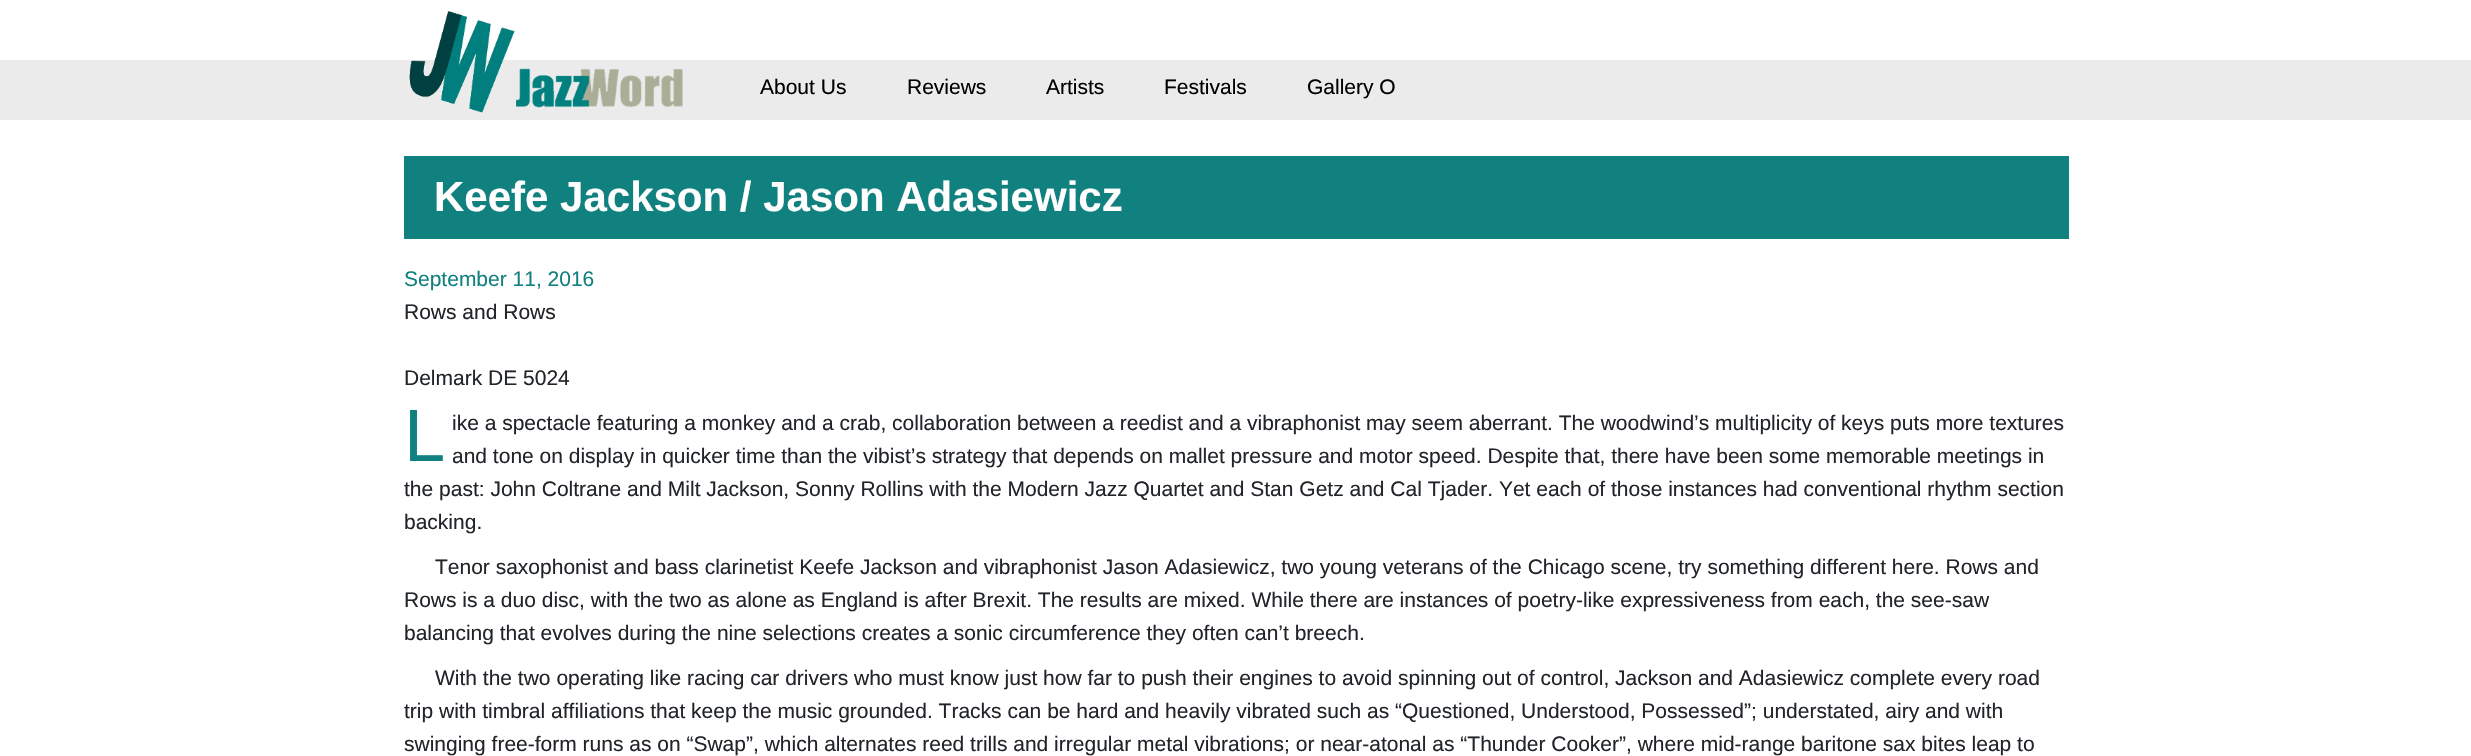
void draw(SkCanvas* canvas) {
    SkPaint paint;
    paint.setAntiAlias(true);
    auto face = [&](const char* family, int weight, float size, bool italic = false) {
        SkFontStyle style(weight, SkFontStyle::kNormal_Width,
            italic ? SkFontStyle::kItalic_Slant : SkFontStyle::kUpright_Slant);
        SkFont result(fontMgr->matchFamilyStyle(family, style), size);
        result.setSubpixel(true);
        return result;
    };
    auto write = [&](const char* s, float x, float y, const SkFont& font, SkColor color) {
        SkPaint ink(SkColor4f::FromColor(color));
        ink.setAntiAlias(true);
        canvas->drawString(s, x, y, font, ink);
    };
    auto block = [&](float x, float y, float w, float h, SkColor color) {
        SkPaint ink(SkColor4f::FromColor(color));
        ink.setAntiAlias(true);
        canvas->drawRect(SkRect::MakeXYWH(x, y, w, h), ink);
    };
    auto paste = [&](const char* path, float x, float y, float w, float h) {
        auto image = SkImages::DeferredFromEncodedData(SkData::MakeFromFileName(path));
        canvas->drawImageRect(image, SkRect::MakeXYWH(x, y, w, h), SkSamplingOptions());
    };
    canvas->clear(SK_ColorWHITE);
    block(0, 60, 2471, 60, SkColorSetRGB(235, 235, 235));
    paste("pic1.png", 409, 11, 106, 102);
    paste("pic2.png", 516, 68, 167, 40);
    auto kFont1 = face("Liberation Sans", 400, 21);
    write("About Us", 760, 94, kFont1, SK_ColorBLACK);
    write("Reviews", 907, 94, kFont1, SK_ColorBLACK);
    write("Artists", 1046, 94, kFont1, SK_ColorBLACK);
    write("Festivals", 1164, 94, kFont1, SK_ColorBLACK);
    write("Gallery O", 1307, 94, kFont1, SK_ColorBLACK);
    block(404, 156, 1665, 83, SkColorSetRGB(17, 129, 127));
    auto kFont2 = face("Liberation Sans", 700, 42);
    write("Keefe Jackson / Jason Adasiewicz", 434, 211, kFont2, SK_ColorWHITE);
    write("September 11, 2016", 404, 286, kFont1, SkColorSetRGB(17, 129, 127));
    write("Rows and Rows", 404, 319, kFont1, SkColorSetRGB(33, 37, 41));
    write("Delmark DE 5024", 404, 385, kFont1, SkColorSetRGB(33, 37, 41));
    auto kFont3 = face("Liberation Sans", 400, 74);
    write("L", 404, 461, kFont3, SkColorSetRGB(17, 129, 127));
    write("ike a spectacle featuring a monkey and a crab, collaboration between a reedist and a vibraphonist may seem aberrant. The woodwind’s multiplicity of keys puts more textures", 452, 430, kFont1, SkColorSetRGB(33, 37, 41));
    write("and tone on display in quicker time than the vibist’s strategy that depends on mallet pressure and motor speed. Despite that, there have been some memorable meetings in", 452, 463, kFont1, SkColorSetRGB(33, 37, 41));
    write("the past: John Coltrane and Milt Jackson, Sonny Rollins with the Modern Jazz Quartet and Stan Getz and Cal Tjader. Yet each of those instances had conventional rhythm section", 404, 496, kFont1, SkColorSetRGB(33, 37, 41));
    write("backing.", 404, 529, kFont1, SkColorSetRGB(33, 37, 41));
    write("Tenor saxophonist and bass clarinetist Keefe Jackson and vibraphonist Jason Adasiewicz, two young veterans of the Chicago scene, try something different here. Rows and", 435, 574, kFont1, SkColorSetRGB(33, 37, 41));
    write("Rows is a duo disc, with the two as alone as England is after Brexit. The results are mixed. While there are instances of poetry-like expressiveness from each, the see-saw", 404, 607, kFont1, SkColorSetRGB(33, 37, 41));
    write("balancing that evolves during the nine selections creates a sonic circumference they often can’t breech.", 404, 640, kFont1, SkColorSetRGB(33, 37, 41));
    write("With the two operating like racing car drivers who must know just how far to push their engines to avoid spinning out of control, Jackson and Adasiewicz complete every road", 435, 685, kFont1, SkColorSetRGB(33, 37, 41));
    write("trip with timbral affiliations that keep the music grounded. Tracks can be hard and heavily vibrated such as “Questioned, Understood, Possessed”; understated, airy and with", 404, 718, kFont1, SkColorSetRGB(33, 37, 41));
    write("swinging free-form runs as on “Swap”, which alternates reed trills and irregular metal vibrations; or near-atonal as “Thunder Cooker”, where mid-range baritone sax bites leap to", 404, 751, kFont1, SkColorSetRGB(33, 37, 41));
}
